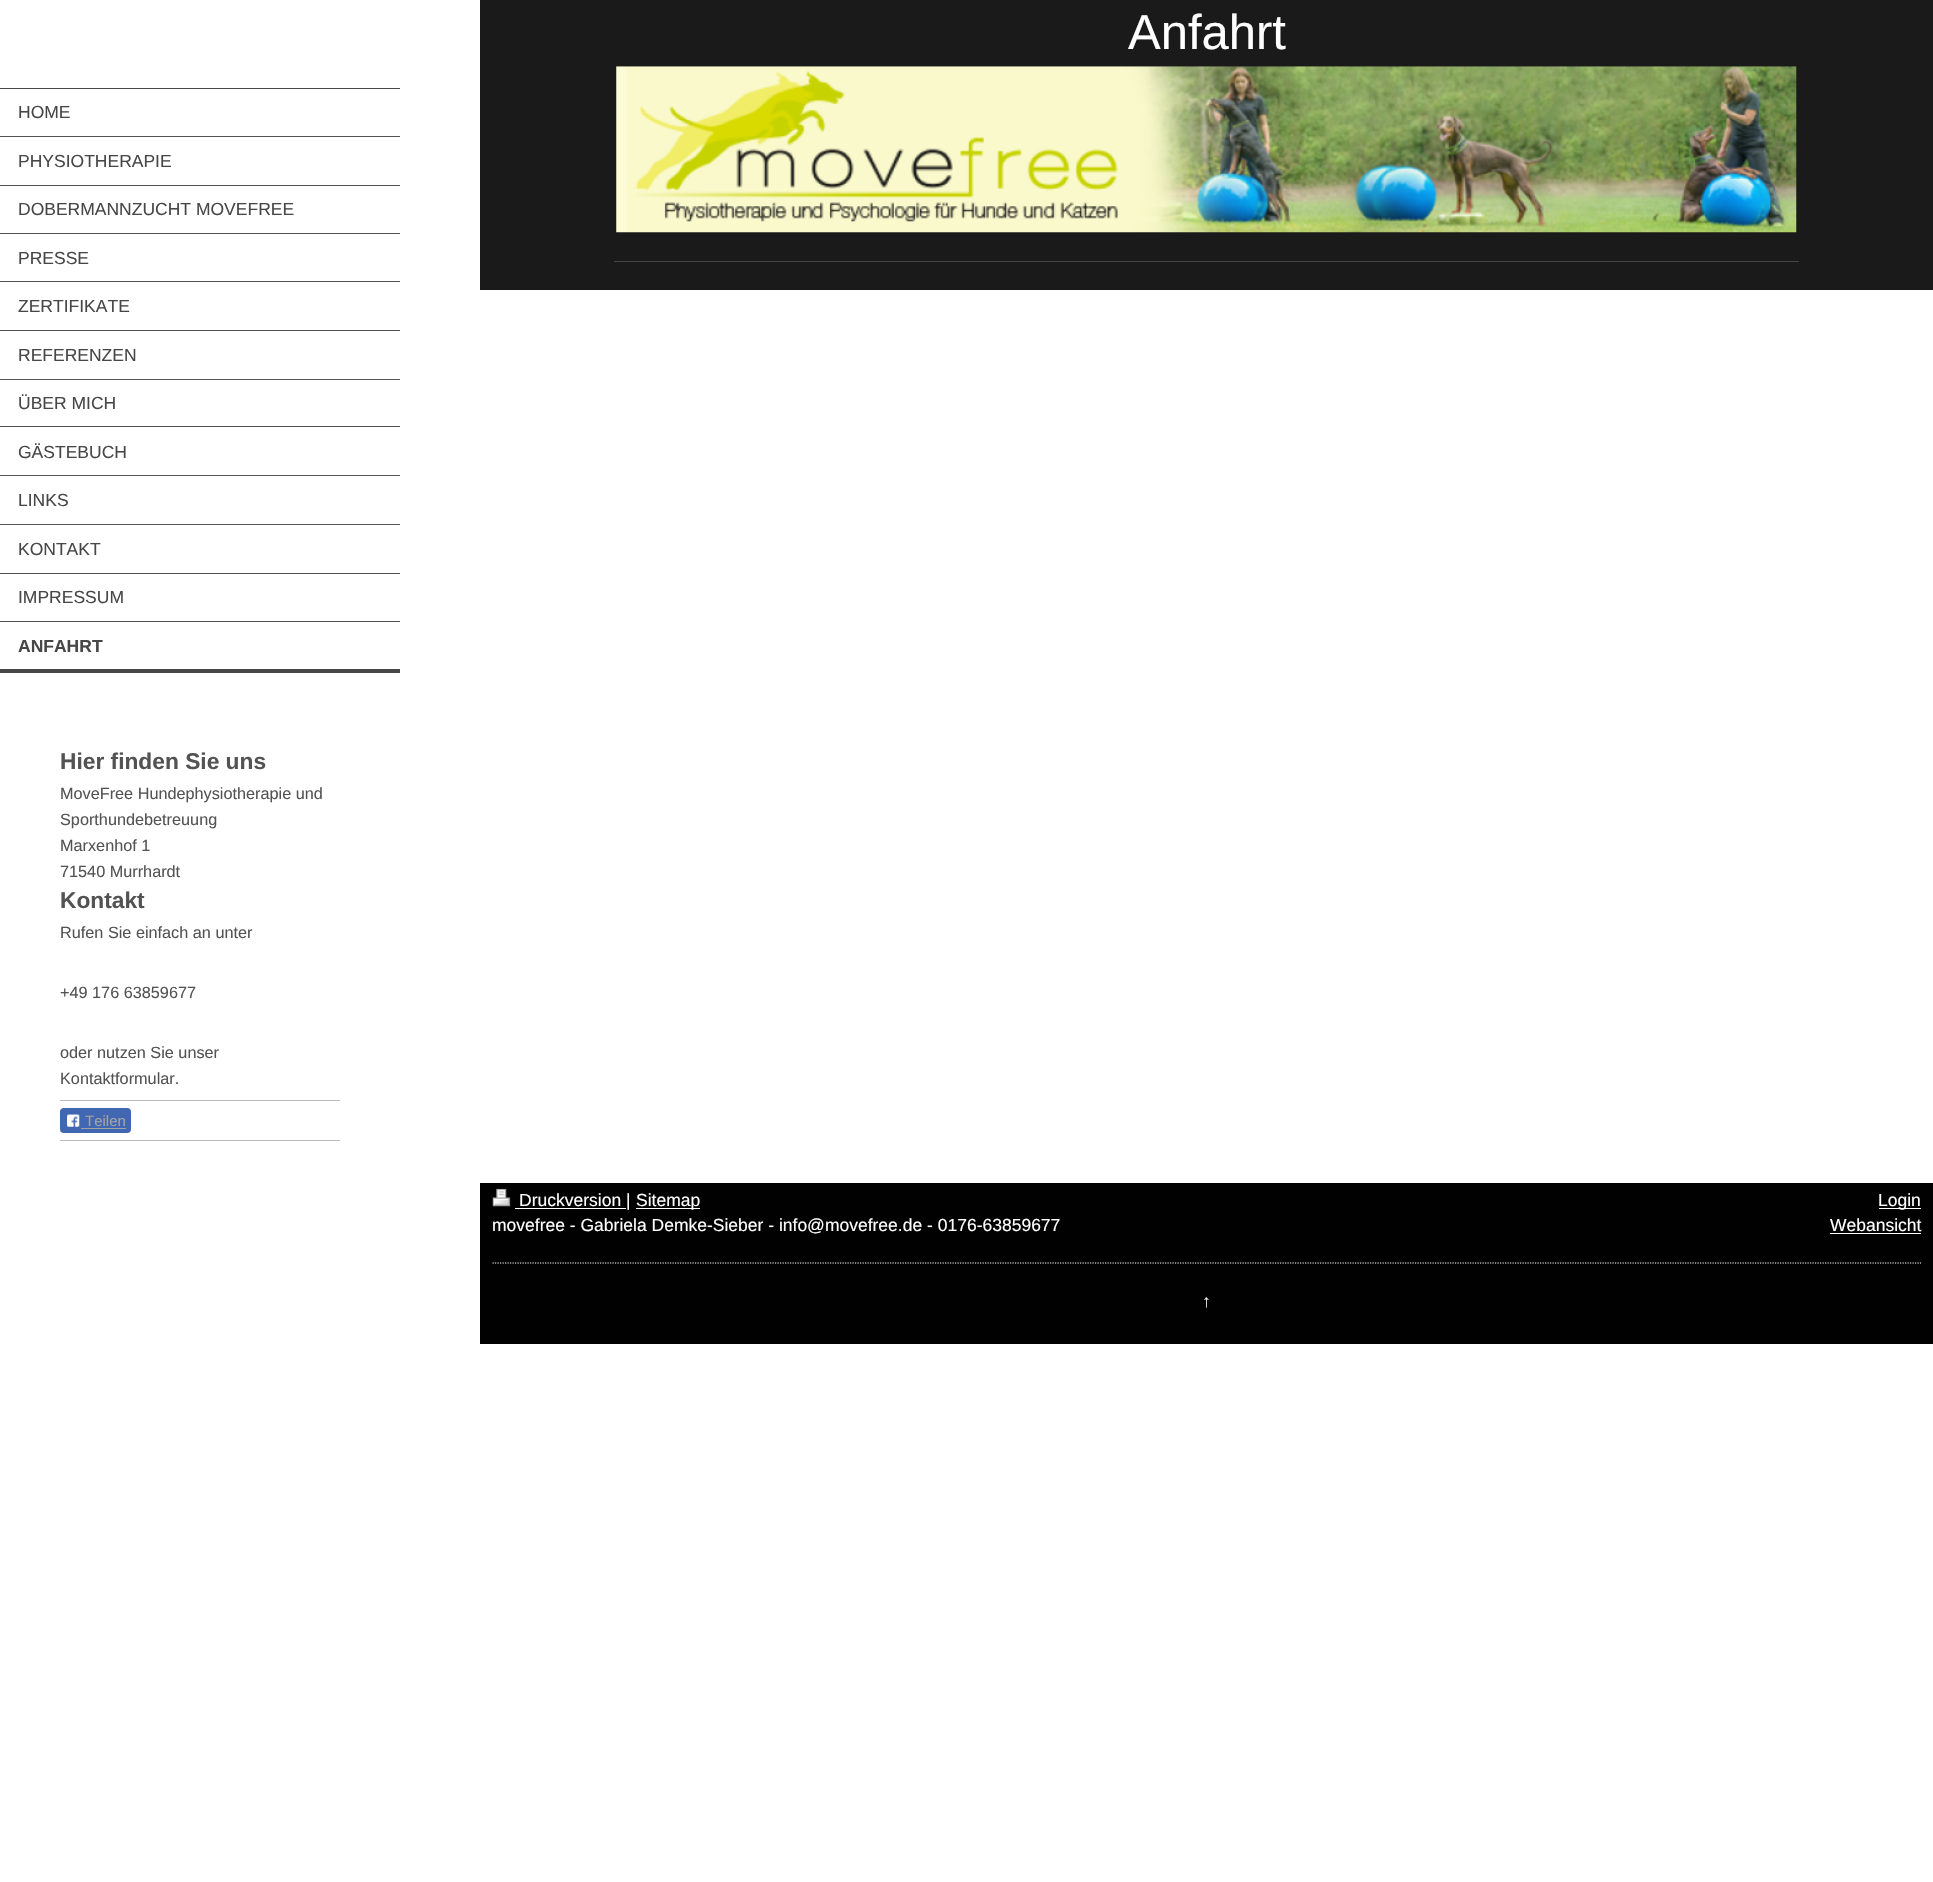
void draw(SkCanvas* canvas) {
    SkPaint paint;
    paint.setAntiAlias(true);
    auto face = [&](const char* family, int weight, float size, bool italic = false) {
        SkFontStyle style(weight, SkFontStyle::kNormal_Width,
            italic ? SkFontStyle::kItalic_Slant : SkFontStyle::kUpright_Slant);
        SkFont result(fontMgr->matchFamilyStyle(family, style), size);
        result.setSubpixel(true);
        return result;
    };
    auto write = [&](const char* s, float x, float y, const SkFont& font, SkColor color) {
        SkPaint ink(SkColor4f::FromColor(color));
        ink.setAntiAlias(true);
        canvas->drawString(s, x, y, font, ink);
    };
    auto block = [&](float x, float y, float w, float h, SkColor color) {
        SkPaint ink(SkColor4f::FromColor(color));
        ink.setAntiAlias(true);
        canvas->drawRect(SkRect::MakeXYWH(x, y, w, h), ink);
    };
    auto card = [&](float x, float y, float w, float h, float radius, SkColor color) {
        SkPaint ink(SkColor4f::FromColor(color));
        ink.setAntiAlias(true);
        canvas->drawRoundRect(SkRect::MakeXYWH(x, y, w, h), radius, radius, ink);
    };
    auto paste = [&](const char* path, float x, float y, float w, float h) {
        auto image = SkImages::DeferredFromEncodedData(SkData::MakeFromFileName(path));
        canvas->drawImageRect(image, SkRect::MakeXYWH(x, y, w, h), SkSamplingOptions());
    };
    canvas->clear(SK_ColorWHITE);
    block(480, 0, 1453, 290, SkColorSetRGB(26, 26, 26));
    auto kFont1 = face("Liberation Sans", 400, 49);
    write("Anfahrt", 1128, 49, kFont1, SK_ColorWHITE);
    paste("pic1.png", 616, 66, 1181, 167);
    block(614, 261, 1185, 1, SkColorSetRGB(69, 69, 69));
    block(0, 88, 400, 1, SkColorSetRGB(71, 71, 71));
    block(0, 136, 400, 1, SkColorSetRGB(83, 83, 83));
    auto kFont2 = face("Liberation Sans", 400, 17.5f);
    write("HOME", 18, 118, kFont2, SkColorSetRGB(71, 71, 71));
    block(0, 185, 400, 1, SkColorSetRGB(83, 83, 83));
    write("PHYSIOTHERAPIE", 18, 167, kFont2, SkColorSetRGB(71, 71, 71));
    block(0, 233, 400, 1, SkColorSetRGB(83, 83, 83));
    write("DOBERMANNZUCHT MOVEFREE", 18, 215, kFont2, SkColorSetRGB(71, 71, 71));
    block(0, 281, 400, 1, SkColorSetRGB(83, 83, 83));
    write("PRESSE", 18, 264, kFont2, SkColorSetRGB(71, 71, 71));
    block(0, 330, 400, 1, SkColorSetRGB(83, 83, 83));
    write("ZERTIFIKATE", 18, 312, kFont2, SkColorSetRGB(71, 71, 71));
    block(0, 379, 400, 1, SkColorSetRGB(83, 83, 83));
    write("REFERENZEN", 18, 361, kFont2, SkColorSetRGB(71, 71, 71));
    block(0, 426, 400, 1, SkColorSetRGB(83, 83, 83));
    write("ÜBER MICH", 18, 409, kFont2, SkColorSetRGB(71, 71, 71));
    block(0, 475, 400, 1, SkColorSetRGB(83, 83, 83));
    write("GÄSTEBUCH", 18, 458, kFont2, SkColorSetRGB(71, 71, 71));
    block(0, 524, 400, 1, SkColorSetRGB(83, 83, 83));
    write("LINKS", 18, 506, kFont2, SkColorSetRGB(71, 71, 71));
    block(0, 573, 400, 1, SkColorSetRGB(83, 83, 83));
    write("KONTAKT", 18, 555, kFont2, SkColorSetRGB(71, 71, 71));
    block(0, 621, 400, 1, SkColorSetRGB(83, 83, 83));
    write("IMPRESSUM", 18, 603, kFont2, SkColorSetRGB(71, 71, 71));
    block(0, 669, 400, 4, SkColorSetRGB(71, 71, 71));
    auto kFont3 = face("Liberation Sans", 700, 17.5f);
    write("ANFAHRT", 18, 652, kFont3, SkColorSetRGB(71, 71, 71));
    auto kFont4 = face("Liberation Sans", 700, 22.75f);
    write("Hier finden Sie uns", 60, 769, kFont4, SkColorSetRGB(83, 83, 83));
    auto kFont5 = face("Liberation Sans", 400, 16.25f);
    write("MoveFree Hundephysiotherapie und", 60, 799, kFont5, SkColorSetRGB(83, 83, 83));
    write("Sporthundebetreuung", 60, 825, kFont5, SkColorSetRGB(83, 83, 83));
    write("Marxenhof 1", 60, 851, kFont5, SkColorSetRGB(83, 83, 83));
    write("71540 Murrhardt", 60, 877, kFont5, SkColorSetRGB(83, 83, 83));
    write("Kontakt", 60, 908, kFont4, SkColorSetRGB(83, 83, 83));
    write("Rufen Sie einfach an unter", 60, 938, kFont5, SkColorSetRGB(83, 83, 83));
    write("+49 176 63859677", 60, 998, kFont5, SkColorSetRGB(83, 83, 83));
    write("oder nutzen Sie unser", 60, 1058, kFont5, SkColorSetRGB(83, 83, 83));
    write("Kontaktformular.", 60, 1084, kFont5, SkColorSetRGB(83, 83, 83));
    block(60, 1100, 280, 1, SkColorSetRGB(186, 186, 186));
    card(60, 1108, 71, 25, 4, SkColorSetRGB(66, 103, 178));
    paste("pic2.png", 67, 1114, 13, 13);
    auto kFont6 = face("Liberation Sans", 400, 15);
    write("Teilen", 85, 1126, kFont6, SkColorSetRGB(163, 163, 163));
    block(81, 1128, 45, 1, SkColorSetRGB(163, 163, 163));
    block(60, 1140, 280, 1, SkColorSetRGB(186, 186, 186));
    block(480, 1183, 1453, 161, SkColorSetRGB(1, 1, 1));
    paste("pic3.png", 492, 1188, 19, 19);
    block(515, 1208, 111, 1, SK_ColorWHITE);
    write("Druckversion |", 519, 1206, kFont2, SK_ColorWHITE);
    block(636, 1208, 64, 1, SK_ColorWHITE);
    write("Sitemap", 636, 1206, kFont2, SK_ColorWHITE);
    write("movefree - Gabriela Demke-Sieber - info@movefree.de - 0176-63859677", 492, 1231, kFont2, SK_ColorWHITE);
    block(1879, 1208, 42, 1, SK_ColorWHITE);
    write("Login", 1878, 1206, kFont2, SK_ColorWHITE);
    write("Webansicht", 1830, 1231, kFont2, SK_ColorWHITE);
    block(1830, 1233, 91, 1, SK_ColorWHITE);
    paint.setStyle(SkPaint::kStroke_Style);
    paint.setStrokeWidth(1.2f);
    paint.setColor(SK_ColorWHITE);
    paint.setPathEffect(SkDashPathEffect::Make({{1.25f, 1.25f}}, 0));
    canvas->drawPath(SkPathBuilder().moveTo(492.5f, 1263).lineTo(1921, 1263).detach(), paint);
    paint.setPathEffect(nullptr);
    write("↑", 1202, 1307, kFont2, SK_ColorWHITE);
}
